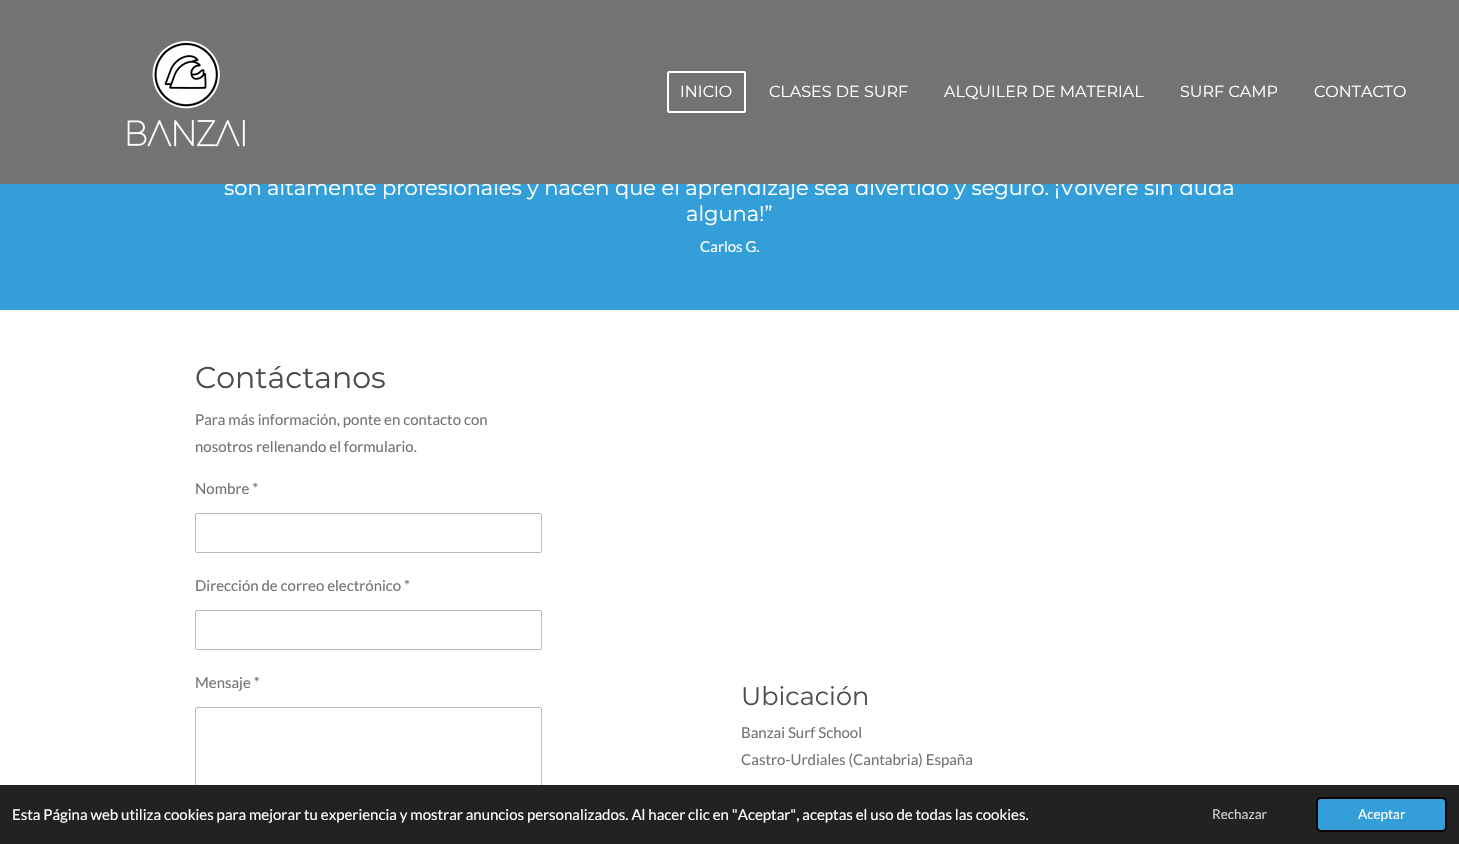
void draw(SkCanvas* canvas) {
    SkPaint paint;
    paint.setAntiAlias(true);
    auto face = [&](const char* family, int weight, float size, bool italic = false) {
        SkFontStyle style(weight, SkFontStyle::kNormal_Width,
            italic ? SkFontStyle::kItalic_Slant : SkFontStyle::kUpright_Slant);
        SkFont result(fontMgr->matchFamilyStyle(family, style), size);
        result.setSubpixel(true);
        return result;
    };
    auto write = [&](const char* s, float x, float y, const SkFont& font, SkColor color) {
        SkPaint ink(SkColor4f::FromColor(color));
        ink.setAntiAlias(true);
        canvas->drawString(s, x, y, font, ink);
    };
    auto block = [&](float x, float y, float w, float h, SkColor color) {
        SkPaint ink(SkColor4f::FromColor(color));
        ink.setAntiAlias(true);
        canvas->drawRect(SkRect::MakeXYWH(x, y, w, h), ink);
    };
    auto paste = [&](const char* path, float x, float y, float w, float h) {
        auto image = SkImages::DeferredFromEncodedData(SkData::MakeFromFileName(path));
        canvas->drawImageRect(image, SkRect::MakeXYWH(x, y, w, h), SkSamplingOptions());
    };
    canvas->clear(SK_ColorWHITE);
    block(0, 184, 1459, 126, SkColorSetRGB(51, 158, 215));
    auto kFont1 = face("Montserrat", 400, 21);
    write("son altamente profesionales y hacen que el aprendizaje sea divertido y seguro. ¡Volveré sin duda", 224, 195, kFont1, SK_ColorWHITE);
    block(0, 0, 1459, 184, SkColorSetRGB(115, 115, 115));
    paste("pic1.png", 127, 40, 118, 107);
    paint.setStyle(SkPaint::kStroke_Style);
    paint.setStrokeWidth(2);
    paint.setColor(SK_ColorWHITE);
    canvas->drawRoundRect(SkRect::MakeXYWH(668, 72, 77, 40), 1, 1, paint);
    auto kFont2 = face("Montserrat", 400, 16);
    write("INICIO", 680, 97, kFont2, SK_ColorWHITE);
    write("CLASES DE SURF", 769, 97, kFont2, SK_ColorWHITE);
    write("ALQUILER DE MATERIAL", 944, 97, kFont2, SK_ColorWHITE);
    write("SURF CAMP", 1180, 97, kFont2, SK_ColorWHITE);
    write("CONTACTO", 1314, 97, kFont2, SK_ColorWHITE);
    write("alguna!”", 686, 221, kFont1, SK_ColorWHITE);
    auto kFont3 = face("Lato", 400, 15);
    write("Carlos G.", 700, 252, kFont3, SK_ColorWHITE);
    auto kFont4 = face("Montserrat", 400, 30);
    write("Contáctanos", 195, 388, kFont4, SkColorSetRGB(77, 77, 77));
    write("Para más información, ponte en contacto con", 195, 425, kFont3, SkColorSetRGB(115, 115, 115));
    write("nosotros rellenando el formulario.", 195, 452, kFont3, SkColorSetRGB(115, 115, 115));
    write("Nombre *", 195, 494, kFont3, SkColorSetRGB(115, 115, 115));
    paint.setStrokeWidth(1);
    paint.setColor(SkColorSetRGB(185, 185, 185));
    canvas->drawRoundRect(SkRect::MakeXYWH(195.5f, 513.5f, 346, 39), 1.5f, 1.5f, paint);
    write("Dirección de correo electrónico *", 195, 591, kFont3, SkColorSetRGB(115, 115, 115));
    canvas->drawRoundRect(SkRect::MakeXYWH(195.5f, 610.5f, 346, 39), 1.5f, 1.5f, paint);
    write("Mensaje *", 195, 688, kFont3, SkColorSetRGB(115, 115, 115));
    canvas->drawRoundRect(SkRect::MakeXYWH(195.5f, 707.5f, 346, 89), 1.5f, 1.5f, paint);
    auto kFont5 = face("Montserrat", 400, 25.5f);
    write("Ubicación", 741, 705, kFont5, SkColorSetRGB(77, 77, 77));
    write("Banzai Surf School", 741, 738, kFont3, SkColorSetRGB(115, 115, 115));
    write("Castro-Urdiales (Cantabria) España", 741, 765, kFont3, SkColorSetRGB(115, 115, 115));
    block(0, 785, 1459, 59, SkColorSetRGB(34, 34, 34));
    write("Esta Página web utiliza cookies para mejorar tu experiencia y mostrar anuncios personalizados. Al hacer clic en \"Aceptar\", aceptas el uso de todas las cookies.", 12, 820, kFont3, SK_ColorWHITE);
    auto kFont6 = face("Lato", 400, 13.5f);
    write("Rechazar", 1212, 819, kFont6, SkColorSetRGB(211, 211, 211));
    paint.setStyle(SkPaint::kFill_Style);
    paint.setColor(SkColorSetRGB(51, 158, 215));
    canvas->drawRoundRect(SkRect::MakeXYWH(1317, 798, 129, 33), 4, 4, paint);
    paint.setStyle(SkPaint::kStroke_Style);
    paint.setStrokeWidth(2);
    paint.setColor(SK_ColorBLACK);
    canvas->drawRoundRect(SkRect::MakeXYWH(1317, 798, 129, 33), 4, 4, paint);
    write("Aceptar", 1358, 819, kFont6, SK_ColorWHITE);
}
